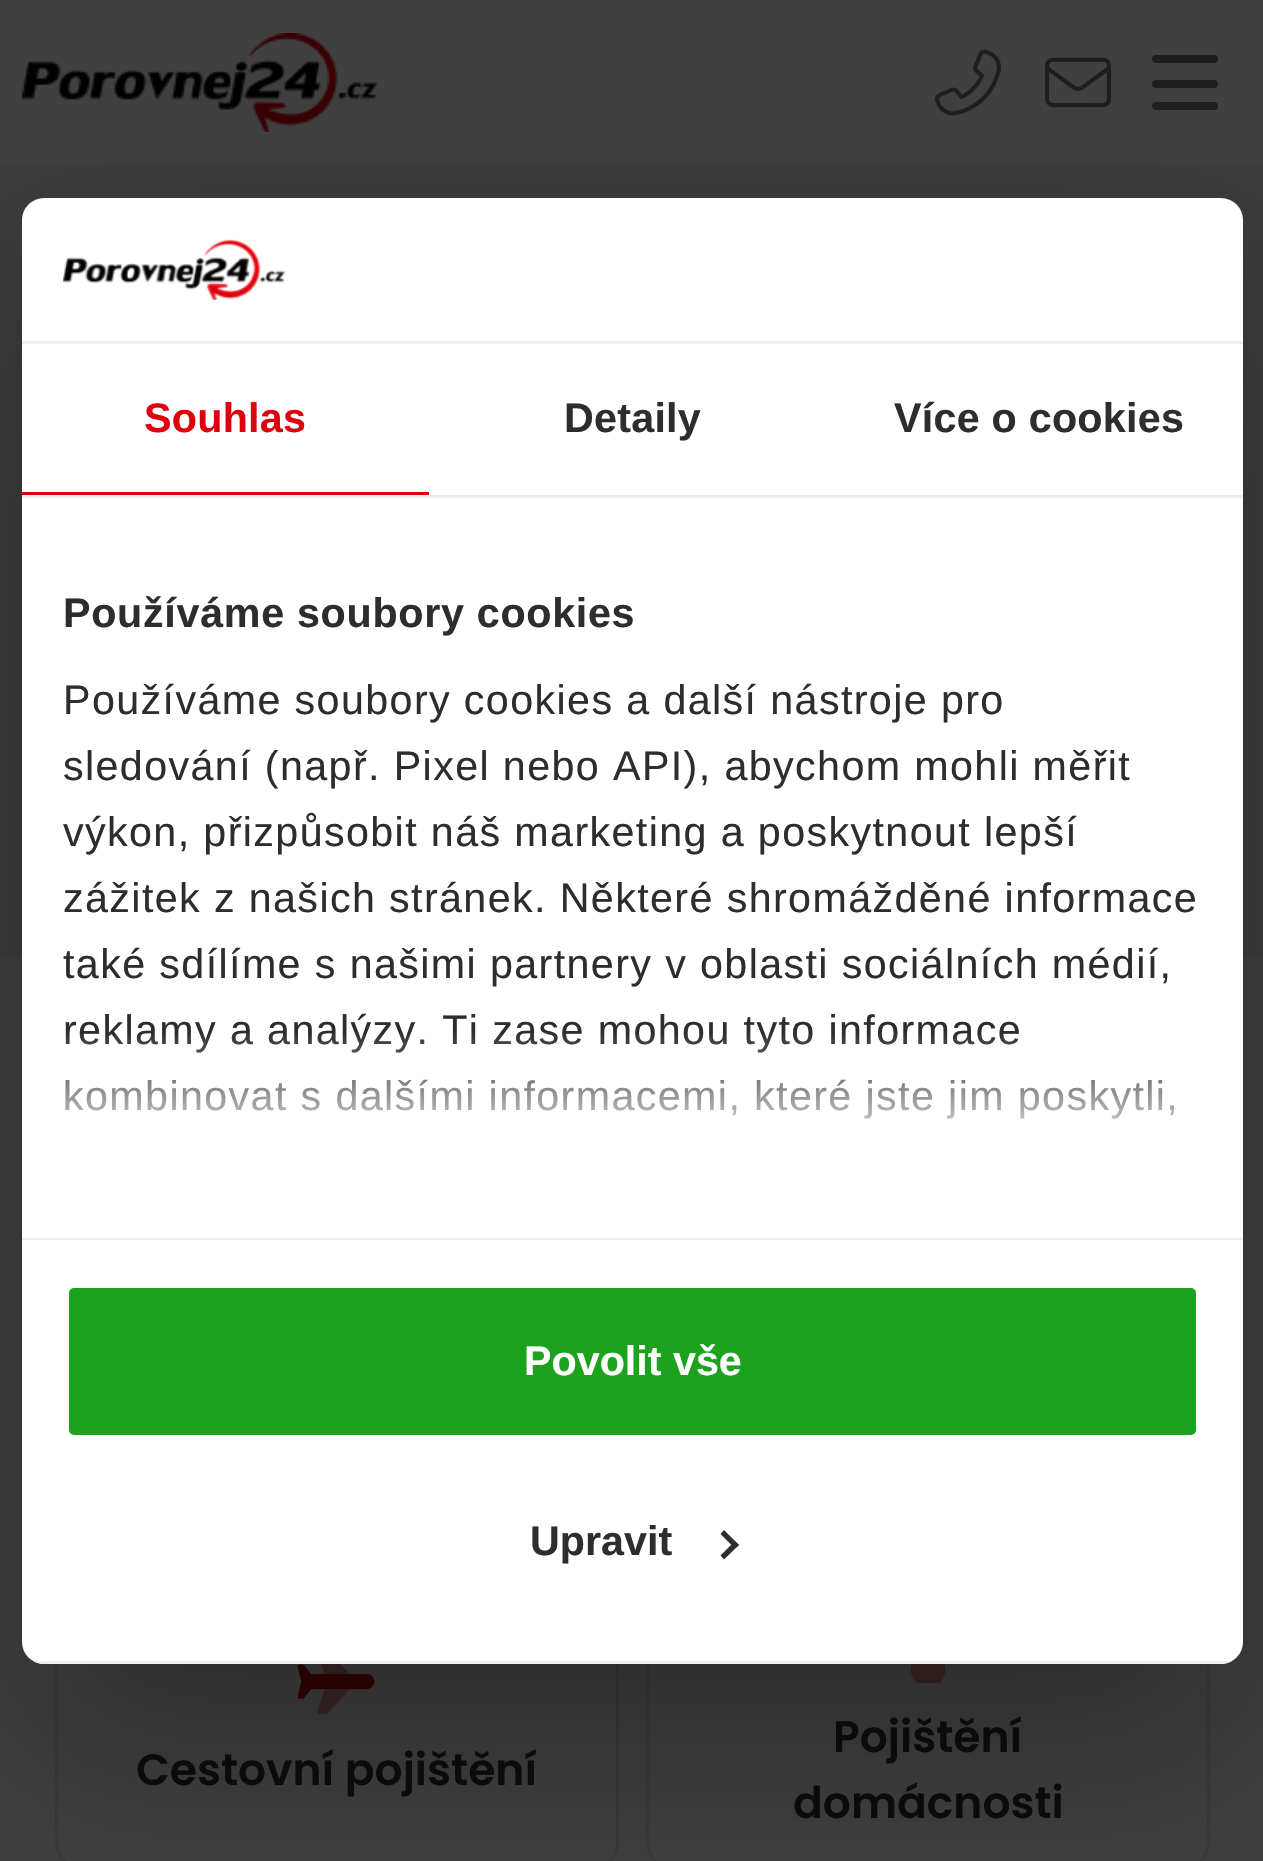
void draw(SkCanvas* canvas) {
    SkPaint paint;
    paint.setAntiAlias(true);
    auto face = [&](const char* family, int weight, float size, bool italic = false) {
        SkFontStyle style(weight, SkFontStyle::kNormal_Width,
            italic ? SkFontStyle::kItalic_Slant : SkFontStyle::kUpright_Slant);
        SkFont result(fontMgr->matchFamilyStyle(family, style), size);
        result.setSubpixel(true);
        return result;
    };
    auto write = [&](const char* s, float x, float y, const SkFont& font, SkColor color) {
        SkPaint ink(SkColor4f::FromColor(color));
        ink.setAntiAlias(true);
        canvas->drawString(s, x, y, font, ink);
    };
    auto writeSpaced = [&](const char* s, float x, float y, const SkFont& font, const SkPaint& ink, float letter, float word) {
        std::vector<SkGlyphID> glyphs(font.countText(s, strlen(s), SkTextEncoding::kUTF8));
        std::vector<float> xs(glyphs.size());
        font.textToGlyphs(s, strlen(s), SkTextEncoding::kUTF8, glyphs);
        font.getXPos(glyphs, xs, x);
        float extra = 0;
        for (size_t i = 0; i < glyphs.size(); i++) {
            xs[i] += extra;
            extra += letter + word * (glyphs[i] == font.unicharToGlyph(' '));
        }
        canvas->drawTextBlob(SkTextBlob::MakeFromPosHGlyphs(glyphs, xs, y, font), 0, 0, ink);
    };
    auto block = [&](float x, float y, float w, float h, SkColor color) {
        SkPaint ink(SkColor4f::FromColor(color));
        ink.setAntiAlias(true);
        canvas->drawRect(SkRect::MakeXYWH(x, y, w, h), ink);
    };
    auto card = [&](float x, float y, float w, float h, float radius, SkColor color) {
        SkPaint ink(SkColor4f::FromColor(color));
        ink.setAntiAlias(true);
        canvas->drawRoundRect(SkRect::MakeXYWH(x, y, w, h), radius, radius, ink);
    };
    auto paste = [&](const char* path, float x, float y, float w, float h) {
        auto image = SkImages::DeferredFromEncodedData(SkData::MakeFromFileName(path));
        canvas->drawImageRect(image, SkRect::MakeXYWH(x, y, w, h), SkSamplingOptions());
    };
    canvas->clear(SkColorSetRGB(64, 64, 64));
    paste("pic2.png", 22, 33, 356, 99);
    paste("pic3.png", 935, 49, 66, 67);
    paste("pic4.png", 1045, 57, 66, 51);
    card(1152, 55, 66, 8, 4, SkColorSetRGB(30, 30, 30));
    card(1152, 80, 66, 8, 4, SkColorSetRGB(30, 30, 30));
    card(1152, 102, 66, 8, 4, SkColorSetRGB(30, 30, 30));
    block(0, 165, 1263, 792, SkColorSetRGB(60, 60, 60));
    paint.setStyle(SkPaint::kStroke_Style);
    paint.setStrokeWidth(3);
    paint.setColor(SkColorSetRGB(57, 58, 59));
    canvas->drawRoundRect(SkRect::MakeXYWH(56.5f, 1582.5f, 561, 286), 26.5f, 26.5f, paint);
    paste("pic5.png", 297, 1664, 78, 50);
    canvas->drawRoundRect(SkRect::MakeXYWH(647.5f, 1582.5f, 561, 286), 26.5f, 26.5f, paint);
    paste("pic6.png", 911, 1664, 35, 19);
    paint.setStyle(SkPaint::kFill_Style);
    paint.setColor(SkColorSetARGB(77, 0, 0, 0));
    paint.setMaskFilter(SkMaskFilter::MakeBlur(kNormal_SkBlurStyle, 93.5f));
    canvas->drawRoundRect(SkRect::MakeXYWH(22, 286, 1221, 1466), 22, 22, paint);
    paint.setMaskFilter(nullptr);
    card(22, 198, 1221, 1466, 22, SK_ColorWHITE);
    block(22, 341, 1221, 3, SkColorSetRGB(238, 238, 238));
    paste("pic1.png", 63, 239, 223, 61);
    block(22, 495, 1221, 3, SkColorSetRGB(238, 238, 238));
    block(22, 492, 407, 3, SkColorSetRGB(223, 0, 13));
    auto kFont1 = face("Liberation Sans", 700, 41.25f);
    paint.setColor(SkColorSetRGB(223, 0, 13));
    writeSpaced("Souhlas", 144, 432, kFont1, paint, 0.25f, 0);
    paint.setColor(SkColorSetRGB(45, 45, 45));
    writeSpaced("Detaily", 564, 432, kFont1, paint, 0.25f, 0);
    writeSpaced("Více o cookies", 894, 432, kFont1, paint, 0.25f, 0);
    block(22, 1238, 1221, 2, SkColorSetRGB(238, 238, 238));
    writeSpaced("Používáme soubory cookies", 63, 627, kFont1, paint, 0.7f, 0);
    auto kFont2 = face("Liberation Sans", 400, 41.25f);
    writeSpaced("Používáme soubory cookies a další nástroje pro", 63, 714, kFont2, paint, 1.38f, 0);
    writeSpaced("sledování (např. Pixel nebo API), abychom mohli měřit", 63, 780, kFont2, paint, 1.38f, 0);
    writeSpaced("výkon, přizpůsobit náš marketing a poskytnout lepší", 63, 846, kFont2, paint, 1.38f, 0);
    writeSpaced("zážitek z našich stránek. Některé shromážděné informace", 63, 912, kFont2, paint, 1.38f, 0);
    writeSpaced("také sdílíme s našimi partnery v oblasti sociálních médií,", 63, 978, kFont2, paint, 1.38f, 0);
    writeSpaced("reklamy a analýzy. Ti zase mohou tyto informace", 63, 1044, kFont2, paint, 1.38f, 0);
    writeSpaced("kombinovat s dalšími informacemi, které jste jim poskytli,", 63, 1110, kFont2, paint, 1.38f, 0);
    {
        const SkColor colors[] = {SK_ColorWHITE, SkColorSetARGB(204, 255, 255, 255), SkColorSetARGB(0, 255, 255, 255)};
        const float stops[] = {0, 0.5f, 1};
        const SkPoint ends[] = {{615, 1238}, {615, 1031}};
        paint.setShader(SkGradientShader::MakeLinear(ends, colors, stops, 3, SkTileMode::kClamp));
        paint.setAlpha(255);
    }
    canvas->drawRect(SkRect::MakeXYWH(66, 1034, 1109, 85), paint);
    canvas->save();
    canvas->clipPath(SkPathBuilder().moveTo(44, 198).lineTo(1221, 198).cubicTo(1233, 198, 1243, 208, 1243, 220).lineTo(1243, 1642).cubicTo(1243, 1654, 1233, 1664, 1221, 1664).lineTo(44, 1664).cubicTo(32, 1664, 22, 1654, 22, 1642).lineTo(22, 220).cubicTo(22, 208, 32, 198, 44, 198).close().detach(), true);
    block(33, 1661, 1199, 3, SkColorSetRGB(238, 238, 238));
    canvas->restore();
    paint.setShader(nullptr);
    paint.setColor(SkColorSetRGB(28, 162, 28));
    canvas->drawRoundRect(SkRect::MakeXYWH(66, 1285, 1133, 153), 8, 8, paint);
    paint.setStyle(SkPaint::kStroke_Style);
    paint.setStrokeWidth(6);
    paint.setColor(SK_ColorWHITE);
    canvas->drawRoundRect(SkRect::MakeXYWH(66, 1285, 1133, 153), 8, 8, paint);
    write("Povolit vše", 524, 1375, kFont1, SK_ColorWHITE);
    write("Upravit", 530, 1555, kFont1, SkColorSetRGB(45, 45, 45));
    paint.setStyle(SkPaint::kFill_Style);
    paint.setColor(SkColorSetRGB(45, 45, 45));
    canvas->drawPath(SkPathBuilder().moveTo(724, 1530).lineTo(739, 1545).lineTo(735, 1548.5f).lineTo(720.5f, 1534).close().detach(), paint);
    canvas->drawPath(SkPathBuilder().moveTo(735, 1541).lineTo(739, 1545).lineTo(724, 1559.5f).lineTo(720.5f, 1555.5f).close().detach(), paint);
    auto kFont3 = face("Poppins", 600, 44);
    write("Cestovní pojištění", 136, 1785, kFont3, SkColorSetRGB(11, 11, 11));
    write("Pojištění", 833, 1752, kFont3, SkColorSetRGB(11, 11, 11));
    write("domácnosti", 793, 1818, kFont3, SkColorSetRGB(11, 11, 11));
}
